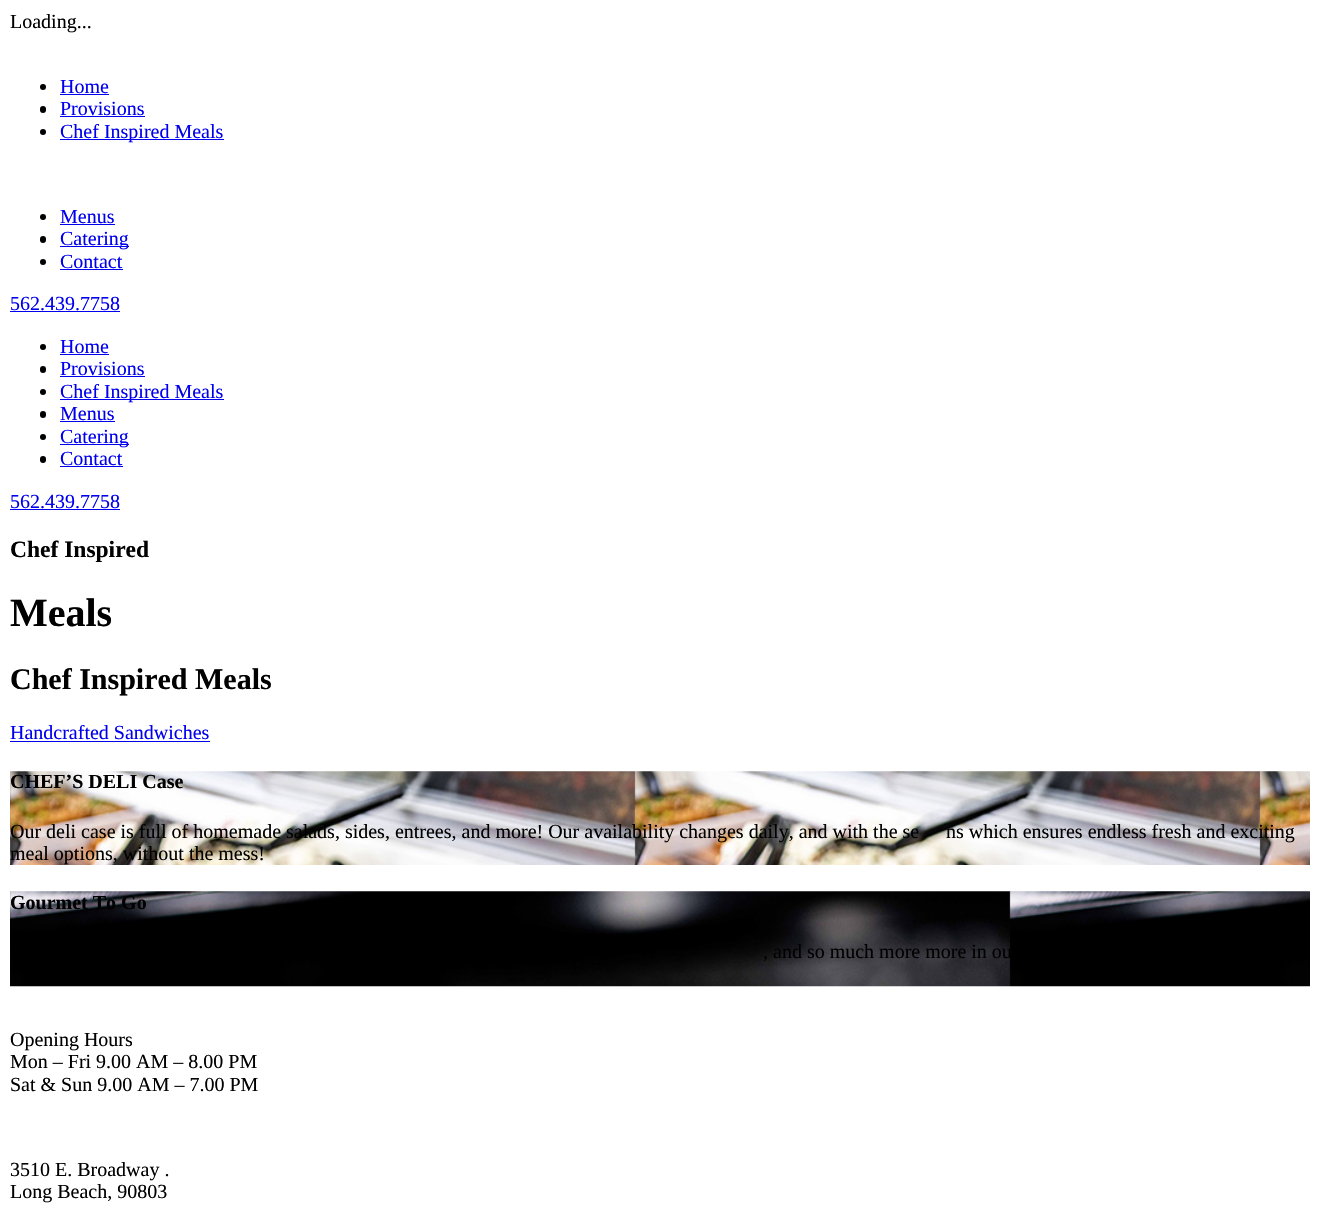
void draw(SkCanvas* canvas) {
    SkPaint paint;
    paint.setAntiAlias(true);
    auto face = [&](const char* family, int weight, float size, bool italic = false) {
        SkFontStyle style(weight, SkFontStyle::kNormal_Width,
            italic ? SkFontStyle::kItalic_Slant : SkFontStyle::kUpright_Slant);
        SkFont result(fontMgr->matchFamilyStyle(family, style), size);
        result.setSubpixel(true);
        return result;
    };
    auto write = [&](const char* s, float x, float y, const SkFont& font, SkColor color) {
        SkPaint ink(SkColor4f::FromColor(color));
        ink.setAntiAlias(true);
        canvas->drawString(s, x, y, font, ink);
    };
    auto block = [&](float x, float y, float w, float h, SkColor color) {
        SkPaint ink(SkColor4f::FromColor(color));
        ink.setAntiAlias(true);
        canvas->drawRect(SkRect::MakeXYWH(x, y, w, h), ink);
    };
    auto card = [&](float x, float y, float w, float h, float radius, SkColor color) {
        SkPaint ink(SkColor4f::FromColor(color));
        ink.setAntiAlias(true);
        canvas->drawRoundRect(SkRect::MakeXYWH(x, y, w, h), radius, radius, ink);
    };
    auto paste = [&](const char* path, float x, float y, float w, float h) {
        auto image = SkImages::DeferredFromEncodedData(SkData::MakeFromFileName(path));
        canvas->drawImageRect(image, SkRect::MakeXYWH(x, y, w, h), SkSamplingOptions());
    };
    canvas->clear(SK_ColorWHITE);
    auto kFont1 = face("Liberation Serif", 400, 20);
    write("Loading...", 10, 28, kFont1, SK_ColorBLACK);
    paint.setColor(SK_ColorBLACK);
    canvas->drawCircle(43, 87, 3, paint);
    write("Home", 60, 93, kFont1, SkColorSetRGB(0, 0, 238));
    block(60, 94, 49, 1, SkColorSetRGB(0, 0, 238));
    card(40, 106, 6, 7, 3, SK_ColorBLACK);
    write("Provisions", 60, 115, kFont1, SkColorSetRGB(0, 0, 238));
    block(60, 116, 85, 1, SkColorSetRGB(0, 0, 238));
    canvas->drawCircle(43, 132, 3, paint);
    block(60, 139, 164, 1, SkColorSetRGB(0, 0, 238));
    write("Chef Inspired Meals", 60, 138, kFont1, SkColorSetRGB(0, 0, 238));
    canvas->drawCircle(43, 217, 3, paint);
    write("Menus", 60, 223, kFont1, SkColorSetRGB(0, 0, 238));
    block(60, 224, 55, 1, SkColorSetRGB(0, 0, 238));
    card(40, 236, 6, 7, 3, SK_ColorBLACK);
    block(60, 246, 69, 1, SkColorSetRGB(0, 0, 238));
    write("Catering", 60, 245, kFont1, SkColorSetRGB(0, 0, 238));
    canvas->drawCircle(43, 262, 3, paint);
    write("Contact", 60, 268, kFont1, SkColorSetRGB(0, 0, 238));
    block(60, 269, 63, 1, SkColorSetRGB(0, 0, 238));
    write("562.439.7758", 10, 310, kFont1, SkColorSetRGB(0, 0, 238));
    block(10, 311, 110, 1, SkColorSetRGB(0, 0, 238));
    canvas->drawCircle(43, 347, 3, paint);
    write("Home", 60, 353, kFont1, SkColorSetRGB(0, 0, 238));
    block(60, 354, 49, 1, SkColorSetRGB(0, 0, 238));
    card(40, 366, 6, 7, 3, SK_ColorBLACK);
    write("Provisions", 60, 375, kFont1, SkColorSetRGB(0, 0, 238));
    block(60, 376, 85, 1, SkColorSetRGB(0, 0, 238));
    canvas->drawCircle(43, 392, 3, paint);
    block(60, 399, 164, 1, SkColorSetRGB(0, 0, 238));
    write("Chef Inspired Meals", 60, 398, kFont1, SkColorSetRGB(0, 0, 238));
    card(40, 411, 6, 7, 3, SK_ColorBLACK);
    write("Menus", 60, 420, kFont1, SkColorSetRGB(0, 0, 238));
    block(60, 421, 55, 1, SkColorSetRGB(0, 0, 238));
    canvas->drawCircle(43, 437, 3, paint);
    block(60, 444, 69, 1, SkColorSetRGB(0, 0, 238));
    write("Catering", 60, 443, kFont1, SkColorSetRGB(0, 0, 238));
    card(40, 456, 6, 7, 3, SK_ColorBLACK);
    write("Contact", 60, 465, kFont1, SkColorSetRGB(0, 0, 238));
    block(60, 466, 63, 1, SkColorSetRGB(0, 0, 238));
    write("562.439.7758", 10, 508, kFont1, SkColorSetRGB(0, 0, 238));
    block(10, 509, 110, 1, SkColorSetRGB(0, 0, 238));
    auto kFont2 = face("Liberation Serif", 700, 23.5f);
    write("Chef Inspired", 10, 557, kFont2, SK_ColorBLACK);
    auto kFont3 = face("Liberation Serif", 700, 40);
    write("Meals", 10, 626, kFont3, SK_ColorBLACK);
    auto kFont4 = face("Liberation Serif", 700, 30);
    write("Chef Inspired Meals", 10, 689, kFont4, SK_ColorBLACK);
    write("Handcrafted Sandwiches", 10, 739, kFont1, SkColorSetRGB(0, 0, 238));
    block(10, 741, 200, 1, SkColorSetRGB(0, 0, 238));
    paste("pic1.png", 10, 771, 1300, 94);
    auto kFont5 = face("Liberation Serif", 700, 20);
    write("CHEF’S DELI Case", 10, 788, kFont5, SK_ColorBLACK);
    write("Our deli case is full of homemade salads, sides, entrees, and more! Our availability changes daily, and with the se", 10, 838, kFont1, SK_ColorBLACK);
    write("ns which ensures endless fresh and exciting", 946, 838, kFont1, SK_ColorBLACK);
    write("meal options, without the mess!", 10, 860, kFont1, SK_ColorBLACK);
    paste("pic2.png", 10, 891, 1300, 96);
    write("Gourmet To Go", 10, 909, kFont5, SK_ColorBLACK);
    write(", and so much more more in ou", 763, 958, kFont1, SK_ColorBLACK);
    write("Opening Hours", 10, 1046, kFont1, SK_ColorBLACK);
    write("Mon – Fri 9.00 AM – 8.00 PM", 10, 1068, kFont1, SK_ColorBLACK);
    write("Sat & Sun 9.00 AM – 7.00 PM", 10, 1091, kFont1, SK_ColorBLACK);
    write("3510 E. Broadway .", 10, 1176, kFont1, SK_ColorBLACK);
    write("Long Beach, 90803", 10, 1198, kFont1, SK_ColorBLACK);
}
